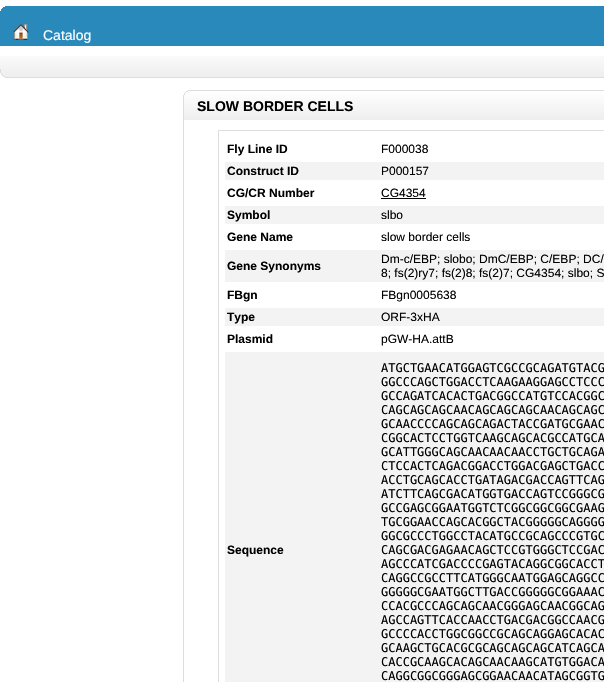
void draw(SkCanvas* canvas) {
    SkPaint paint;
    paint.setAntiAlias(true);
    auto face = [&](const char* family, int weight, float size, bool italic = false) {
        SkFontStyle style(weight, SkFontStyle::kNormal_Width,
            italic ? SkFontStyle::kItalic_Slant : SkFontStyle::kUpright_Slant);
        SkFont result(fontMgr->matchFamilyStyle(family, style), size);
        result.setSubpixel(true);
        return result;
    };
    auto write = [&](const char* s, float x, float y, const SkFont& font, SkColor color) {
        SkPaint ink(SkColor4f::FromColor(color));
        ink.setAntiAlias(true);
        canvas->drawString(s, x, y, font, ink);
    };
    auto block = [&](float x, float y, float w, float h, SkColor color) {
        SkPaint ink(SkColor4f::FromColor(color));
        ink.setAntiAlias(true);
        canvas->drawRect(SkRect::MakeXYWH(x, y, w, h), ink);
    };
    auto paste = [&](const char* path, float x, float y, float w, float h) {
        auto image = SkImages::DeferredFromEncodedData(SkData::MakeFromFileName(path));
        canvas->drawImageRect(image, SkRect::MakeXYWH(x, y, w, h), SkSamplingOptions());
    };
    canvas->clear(SK_ColorWHITE);
    block(0, 6, 604, 40, SkColorSetRGB(41, 137, 186));
    paste("pic1.png", 0, 6, 5, 5);
    paste("pic2.png", 13, 24, 16, 16);
    auto kFont1 = face("Liberation Sans", 400, 14);
    write("Catalog", 43, 40, kFont1, SK_ColorWHITE);
    paste("pic3.png", 0, 56, 604, 22);
    paste("pic4.png", 0, 69, 5, 9);
    block(183, 120, 1, 562, SkColorSetRGB(221, 221, 221));
    paste("pic5.png", 188, 90, 416, 30);
    paste("pic6.png", 183, 90, 5, 30);
    auto kFont2 = face("Liberation Sans", 700, 14);
    write("SLOW BORDER CELLS", 197, 111, kFont2, SK_ColorBLACK);
    paint.setStyle(SkPaint::kStroke_Style);
    paint.setStrokeWidth(1);
    paint.setColor(SkColorSetRGB(221, 221, 221));
    canvas->drawRect(SkRect::MakeXYWH(218.5f, 130.5f, 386, 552), paint);
    auto kFont3 = face("Liberation Sans", 700, 12);
    write("Fly Line ID", 227, 153, kFont3, SK_ColorBLACK);
    auto kFont4 = face("Liberation Sans", 400, 12);
    write("F000038", 381, 153, kFont4, SK_ColorBLACK);
    block(225, 162, 379, 18, SkColorSetRGB(243, 243, 243));
    write("Construct ID", 227, 175, kFont3, SK_ColorBLACK);
    write("P000157", 381, 175, kFont4, SK_ColorBLACK);
    write("CG/CR Number", 227, 197, kFont3, SK_ColorBLACK);
    write("CG4354", 381, 197, kFont4, SK_ColorBLACK);
    block(381, 198, 45, 1, SK_ColorBLACK);
    block(225, 206, 379, 18, SkColorSetRGB(243, 243, 243));
    write("Symbol", 227, 219, kFont3, SK_ColorBLACK);
    write("slbo", 381, 219, kFont4, SK_ColorBLACK);
    write("Gene Name", 227, 241, kFont3, SK_ColorBLACK);
    write("slow border cells", 381, 241, kFont4, SK_ColorBLACK);
    block(225, 250, 379, 32, SkColorSetRGB(243, 243, 243));
    write("Gene Synonyms", 227, 270, kFont3, SK_ColorBLACK);
    write("Dm-c/EBP; slobo; DmC/EBP; C/EBP; DC/", 381, 263, kFont4, SK_ColorBLACK);
    write("8; fs(2)ry7; fs(2)8; fs(2)7; CG4354; slbo; S", 381, 277, kFont4, SK_ColorBLACK);
    write("FBgn", 227, 299, kFont3, SK_ColorBLACK);
    write("FBgn0005638", 381, 299, kFont4, SK_ColorBLACK);
    block(225, 308, 379, 18, SkColorSetRGB(243, 243, 243));
    write("Type", 227, 321, kFont3, SK_ColorBLACK);
    write("ORF-3xHA", 381, 321, kFont4, SK_ColorBLACK);
    write("Plasmid", 227, 343, kFont3, SK_ColorBLACK);
    write("pGW-HA.attB", 381, 343, kFont4, SK_ColorBLACK);
    block(225, 352, 379, 330, SkColorSetRGB(243, 243, 243));
    write("Sequence", 227, 554, kFont3, SK_ColorBLACK);
    auto kFont5 = face("DejaVu Sans Mono", 400, 12);
    write("ATGCTGAACATGGAGTCGCCGCAGATGTACG", 381, 372, kFont5, SK_ColorBLACK);
    write("GGCCCAGCTGGACCTCAAGAAGGAGCCTCCC", 381, 386, kFont5, SK_ColorBLACK);
    write("GCCAGATCACACTGACGGCCATGTCCACGGC", 381, 400, kFont5, SK_ColorBLACK);
    write("CAGCAGCAGCAACAGCAGCAGCAACAGCAGC", 381, 414, kFont5, SK_ColorBLACK);
    write("GCAACCCCAGCAGCAGACTACCGATGCGAAC", 381, 428, kFont5, SK_ColorBLACK);
    write("CGGCACTCCTGGTCAAGCAGCACGCCATGCA", 381, 442, kFont5, SK_ColorBLACK);
    write("GCATTGGGCAGCAACAACAACCTGCTGCAGA", 381, 456, kFont5, SK_ColorBLACK);
    write("CTCCACTCAGACGGACCTGGACGAGCTGACC", 381, 470, kFont5, SK_ColorBLACK);
    write("ACCTGCAGCACCTGATAGACGACCAGTTCAG", 381, 484, kFont5, SK_ColorBLACK);
    write("ATCTTCAGCGACATGGTGACCAGTCCGGGCG", 381, 498, kFont5, SK_ColorBLACK);
    write("GCCGAGCGGAATGGTCTCGGCGGCGGCGAAG", 381, 512, kFont5, SK_ColorBLACK);
    write("TGCGGAACCAGCACGGCTACGGGGGCAGGGG", 381, 526, kFont5, SK_ColorBLACK);
    write("GGCGCCCTGGCCTACATGCCGCAGCCCGTGC", 381, 540, kFont5, SK_ColorBLACK);
    write("CAGCGACGAGAACAGCTCCGTGGGCTCCGAC", 381, 554, kFont5, SK_ColorBLACK);
    write("AGCCCATCGACCCCGAGTACAGGCGGCACCT", 381, 568, kFont5, SK_ColorBLACK);
    write("CAGGCCGCCTTCATGGGCAATGGAGCAGGCC", 381, 582, kFont5, SK_ColorBLACK);
    write("GGGGGCGAATGGCTTGACCGGGGGCGGAAAC", 381, 596, kFont5, SK_ColorBLACK);
    write("CCACGCCCAGCAGCAACGGGAGCAACGGCAG", 381, 610, kFont5, SK_ColorBLACK);
    write("AGCCAGTTCACCAACCTGACGACGGCCAACG", 381, 624, kFont5, SK_ColorBLACK);
    write("GCCCCACCTGGCGGCCGCAGCAGGAGCACAC", 381, 638, kFont5, SK_ColorBLACK);
    write("GCAAGCTGCACGCGCAGCAGCAGCATCAGCA", 381, 652, kFont5, SK_ColorBLACK);
    write("CACCGCAAGCACAGCAACAAGCATGTGGACA", 381, 666, kFont5, SK_ColorBLACK);
    write("CAGGCGGCGGGAGCGGAACAACATAGCGGTG", 381, 680, kFont5, SK_ColorBLACK);
}
